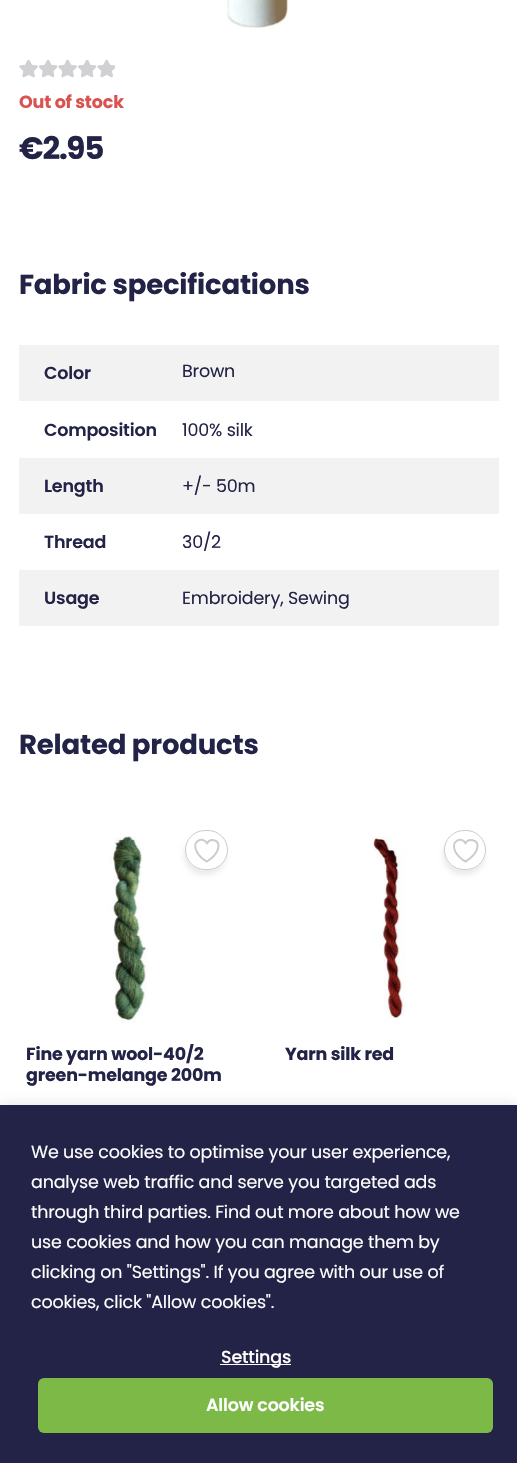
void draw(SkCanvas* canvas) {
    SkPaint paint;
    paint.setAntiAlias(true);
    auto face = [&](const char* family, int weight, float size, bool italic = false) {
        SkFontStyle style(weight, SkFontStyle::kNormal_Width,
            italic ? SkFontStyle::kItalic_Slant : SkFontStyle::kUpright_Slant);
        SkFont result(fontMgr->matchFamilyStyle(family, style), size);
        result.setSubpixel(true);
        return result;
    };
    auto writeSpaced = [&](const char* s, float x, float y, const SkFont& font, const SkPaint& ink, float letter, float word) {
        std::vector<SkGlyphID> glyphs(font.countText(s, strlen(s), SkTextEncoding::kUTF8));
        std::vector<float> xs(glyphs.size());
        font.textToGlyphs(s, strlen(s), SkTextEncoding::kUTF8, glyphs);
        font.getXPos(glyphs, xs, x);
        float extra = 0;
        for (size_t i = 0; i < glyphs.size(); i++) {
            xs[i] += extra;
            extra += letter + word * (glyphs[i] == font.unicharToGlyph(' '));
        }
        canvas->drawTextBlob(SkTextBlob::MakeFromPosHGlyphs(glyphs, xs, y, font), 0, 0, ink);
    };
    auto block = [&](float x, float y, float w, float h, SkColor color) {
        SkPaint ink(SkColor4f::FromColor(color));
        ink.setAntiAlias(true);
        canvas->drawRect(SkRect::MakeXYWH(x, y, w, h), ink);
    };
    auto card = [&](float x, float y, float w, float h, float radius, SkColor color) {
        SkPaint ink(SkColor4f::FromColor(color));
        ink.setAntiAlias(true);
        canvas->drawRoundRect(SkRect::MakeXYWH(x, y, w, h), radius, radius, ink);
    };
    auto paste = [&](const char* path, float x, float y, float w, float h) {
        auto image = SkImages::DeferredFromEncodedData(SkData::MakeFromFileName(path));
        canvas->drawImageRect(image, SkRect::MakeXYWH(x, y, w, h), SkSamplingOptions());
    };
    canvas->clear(SK_ColorWHITE);
    paste("pic1.png", 227, 0, 62, 29);
    paste("pic2.png", 19, 60, 96, 18);
    paste("pic3.png", 19, 60, 96, 18);
    auto kFont1 = face("Poppins", 700, 17.5f);
    paint.setColor(SkColorSetRGB(217, 83, 79));
    writeSpaced("Out of stock", 19, 108, kFont1, paint, -0.18f, 0);
    auto kFont2 = face("Poppins", 700, 31);
    paint.setColor(SkColorSetRGB(35, 35, 71));
    writeSpaced("€2.95", 19, 159, kFont2, paint, -1.25f, 0);
    auto kFont3 = face("Poppins", 700, 27.5f);
    writeSpaced("Fabric specifications", 19, 294, kFont3, paint, -0.18f, 0);
    block(19, 345, 480, 56, SkColorSetRGB(242, 242, 242));
    auto kFont4 = face("Poppins", 600, 17.5f);
    writeSpaced("Color", 44, 379, kFont4, paint, -0.18f, 0);
    auto kFont5 = face("Poppins", 400, 17.5f);
    writeSpaced("Brown", 182, 377, kFont5, paint, -0.18f, 0);
    writeSpaced("Composition", 44, 436, kFont4, paint, -0.18f, 0);
    writeSpaced("100% silk", 182, 436, kFont5, paint, -0.18f, 0);
    block(19, 458, 480, 56, SkColorSetRGB(242, 242, 242));
    writeSpaced("Length", 44, 492, kFont4, paint, -0.18f, 0);
    writeSpaced("+/- 50m", 182, 492, kFont5, paint, -0.18f, 0);
    writeSpaced("Thread", 44, 548, kFont4, paint, -0.18f, 0);
    writeSpaced("30/2", 182, 548, kFont5, paint, -0.18f, 0);
    block(19, 570, 480, 56, SkColorSetRGB(242, 242, 242));
    writeSpaced("Usage", 44, 604, kFont4, paint, -0.18f, 0);
    writeSpaced("Embroidery, Sewing", 182, 604, kFont5, paint, -0.18f, 0);
    writeSpaced("Related products", 19, 754, kFont3, paint, -0.18f, 0);
    canvas->save();
    canvas->clipPath(SkPathBuilder(SkPathFillType::kEvenOdd).moveTo(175, 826).lineTo(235, 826).lineTo(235, 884).lineTo(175, 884).close().moveTo(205, 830).lineTo(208, 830).cubicTo(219, 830, 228, 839, 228, 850).cubicTo(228, 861, 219, 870, 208, 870).lineTo(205, 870).cubicTo(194, 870, 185, 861, 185, 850).cubicTo(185, 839, 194, 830, 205, 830).close().detach(), true);
    paint.setColor(SkColorSetARGB(20, 0, 0, 0));
    paint.setMaskFilter(SkMaskFilter::MakeBlur(kNormal_SkBlurStyle, 2.5f));
    canvas->drawRoundRect(SkRect::MakeXYWH(184, 835, 42, 40), 20, 20, paint);
    paint.setMaskFilter(nullptr);
    canvas->restore();
    paint.setStyle(SkPaint::kStroke_Style);
    paint.setStrokeWidth(1);
    paint.setColor(SkColorSetRGB(204, 204, 204));
    canvas->drawRoundRect(SkRect::MakeXYWH(185.5f, 830.5f, 42, 39), 19.5f, 19.5f, paint);
    paint.setStrokeWidth(2);
    paint.setStrokeCap(SkPaint::kRound_Cap);
    paint.setStrokeJoin(SkPaint::kRound_Join);
    canvas->drawPath(SkPathBuilder().moveTo(218.5f, 845.5f).cubicTo(218.5f, 839.5f, 209.5f, 838, 207, 843.5f).cubicTo(203.5f, 836, 190.5f, 840.5f, 197, 852).cubicTo(199, 856, 203, 859.5f, 207, 861.5f).cubicTo(207, 861.5f, 218.5f, 855, 218.5f, 845.5f).close().detach(), paint);
    paste("pic4.png", 109, 836, 38, 187);
    canvas->save();
    canvas->clipRect(SkRect::MakeXYWH(26, 1044, 207, 44));
    paint.setStyle(SkPaint::kFill_Style);
    paint.setColor(SkColorSetRGB(35, 35, 71));
    writeSpaced("Fine yarn wool-40/2", 26, 1060, kFont1, paint, -0.18f, 0);
    canvas->restore();
    writeSpaced("green-melange 200m", 26, 1081, kFont1, paint, -0.18f, 0);
    canvas->save();
    canvas->clipPath(SkPathBuilder(SkPathFillType::kEvenOdd).moveTo(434, 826).lineTo(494, 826).lineTo(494, 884).lineTo(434, 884).close().moveTo(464, 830).lineTo(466, 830).cubicTo(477, 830, 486, 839, 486, 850).cubicTo(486, 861, 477, 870, 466, 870).lineTo(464, 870).cubicTo(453, 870, 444, 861, 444, 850).cubicTo(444, 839, 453, 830, 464, 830).close().detach(), true);
    paint.setColor(SkColorSetARGB(20, 0, 0, 0));
    paint.setMaskFilter(SkMaskFilter::MakeBlur(kNormal_SkBlurStyle, 2.5f));
    canvas->drawRoundRect(SkRect::MakeXYWH(443, 835, 42, 40), 20, 20, paint);
    paint.setMaskFilter(nullptr);
    canvas->restore();
    paint.setStyle(SkPaint::kStroke_Style);
    paint.setStrokeWidth(1);
    paint.setStrokeCap(SkPaint::kButt_Cap);
    paint.setStrokeJoin(SkPaint::kMiter_Join);
    paint.setColor(SkColorSetRGB(204, 204, 204));
    canvas->drawRoundRect(SkRect::MakeXYWH(444.5f, 830.5f, 41, 39), 19.5f, 19.5f, paint);
    paint.setStrokeWidth(2);
    paint.setStrokeCap(SkPaint::kRound_Cap);
    paint.setStrokeJoin(SkPaint::kRound_Join);
    canvas->drawPath(SkPathBuilder().moveTo(477.5f, 845.5f).cubicTo(477.5f, 839.5f, 468, 838, 465.5f, 843.5f).cubicTo(462.5f, 836, 449.5f, 840.5f, 455.5f, 852).cubicTo(458, 856, 461.5f, 859.5f, 465.5f, 861.5f).cubicTo(465.5f, 861.5f, 477.5f, 855, 477.5f, 845.5f).close().detach(), paint);
    paste("pic5.png", 372, 836, 34, 184);
    paint.setStyle(SkPaint::kFill_Style);
    paint.setColor(SkColorSetRGB(35, 35, 71));
    writeSpaced("Yarn silk red", 285, 1060, kFont1, paint, -0.18f, 0);
    paint.setColor(SkColorSetARGB(77, 172, 171, 171));
    paint.setMaskFilter(SkMaskFilter::MakeBlur(kNormal_SkBlurStyle, 6));
    canvas->drawRect(SkRect::MakeXYWH(0, 1104, 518, 359), paint);
    paint.setMaskFilter(nullptr);
    block(0, 1105, 517, 358, SkColorSetRGB(35, 35, 71));
    paint.setColor(SK_ColorWHITE);
    writeSpaced("We use cookies to optimise your user experience,", 31, 1158, kFont5, paint, -0.18f, 0);
    writeSpaced("analyse web traffic and serve you targeted ads", 31, 1188, kFont5, paint, -0.18f, 0);
    writeSpaced("through third parties. Find out more about how we", 31, 1218, kFont5, paint, -0.18f, 0);
    writeSpaced("use cookies and how you can manage them by", 31, 1248, kFont5, paint, -0.18f, 0);
    writeSpaced("clicking on \"Settings\". If you agree with our use of", 31, 1278, kFont5, paint, -0.18f, 0);
    writeSpaced("cookies, click \"Allow cookies\".", 31, 1308, kFont5, paint, -0.18f, 0);
    block(220, 1364, 71, 1, SK_ColorWHITE);
    auto kFont6 = face("Poppins", 500, 17.5f);
    writeSpaced("Settings", 221, 1363, kFont6, paint, -0.18f, 0);
    card(38, 1378, 455, 55, 6, SkColorSetRGB(124, 185, 71));
    writeSpaced("Allow cookies", 206, 1411, kFont4, paint, -0.18f, 0);
}
